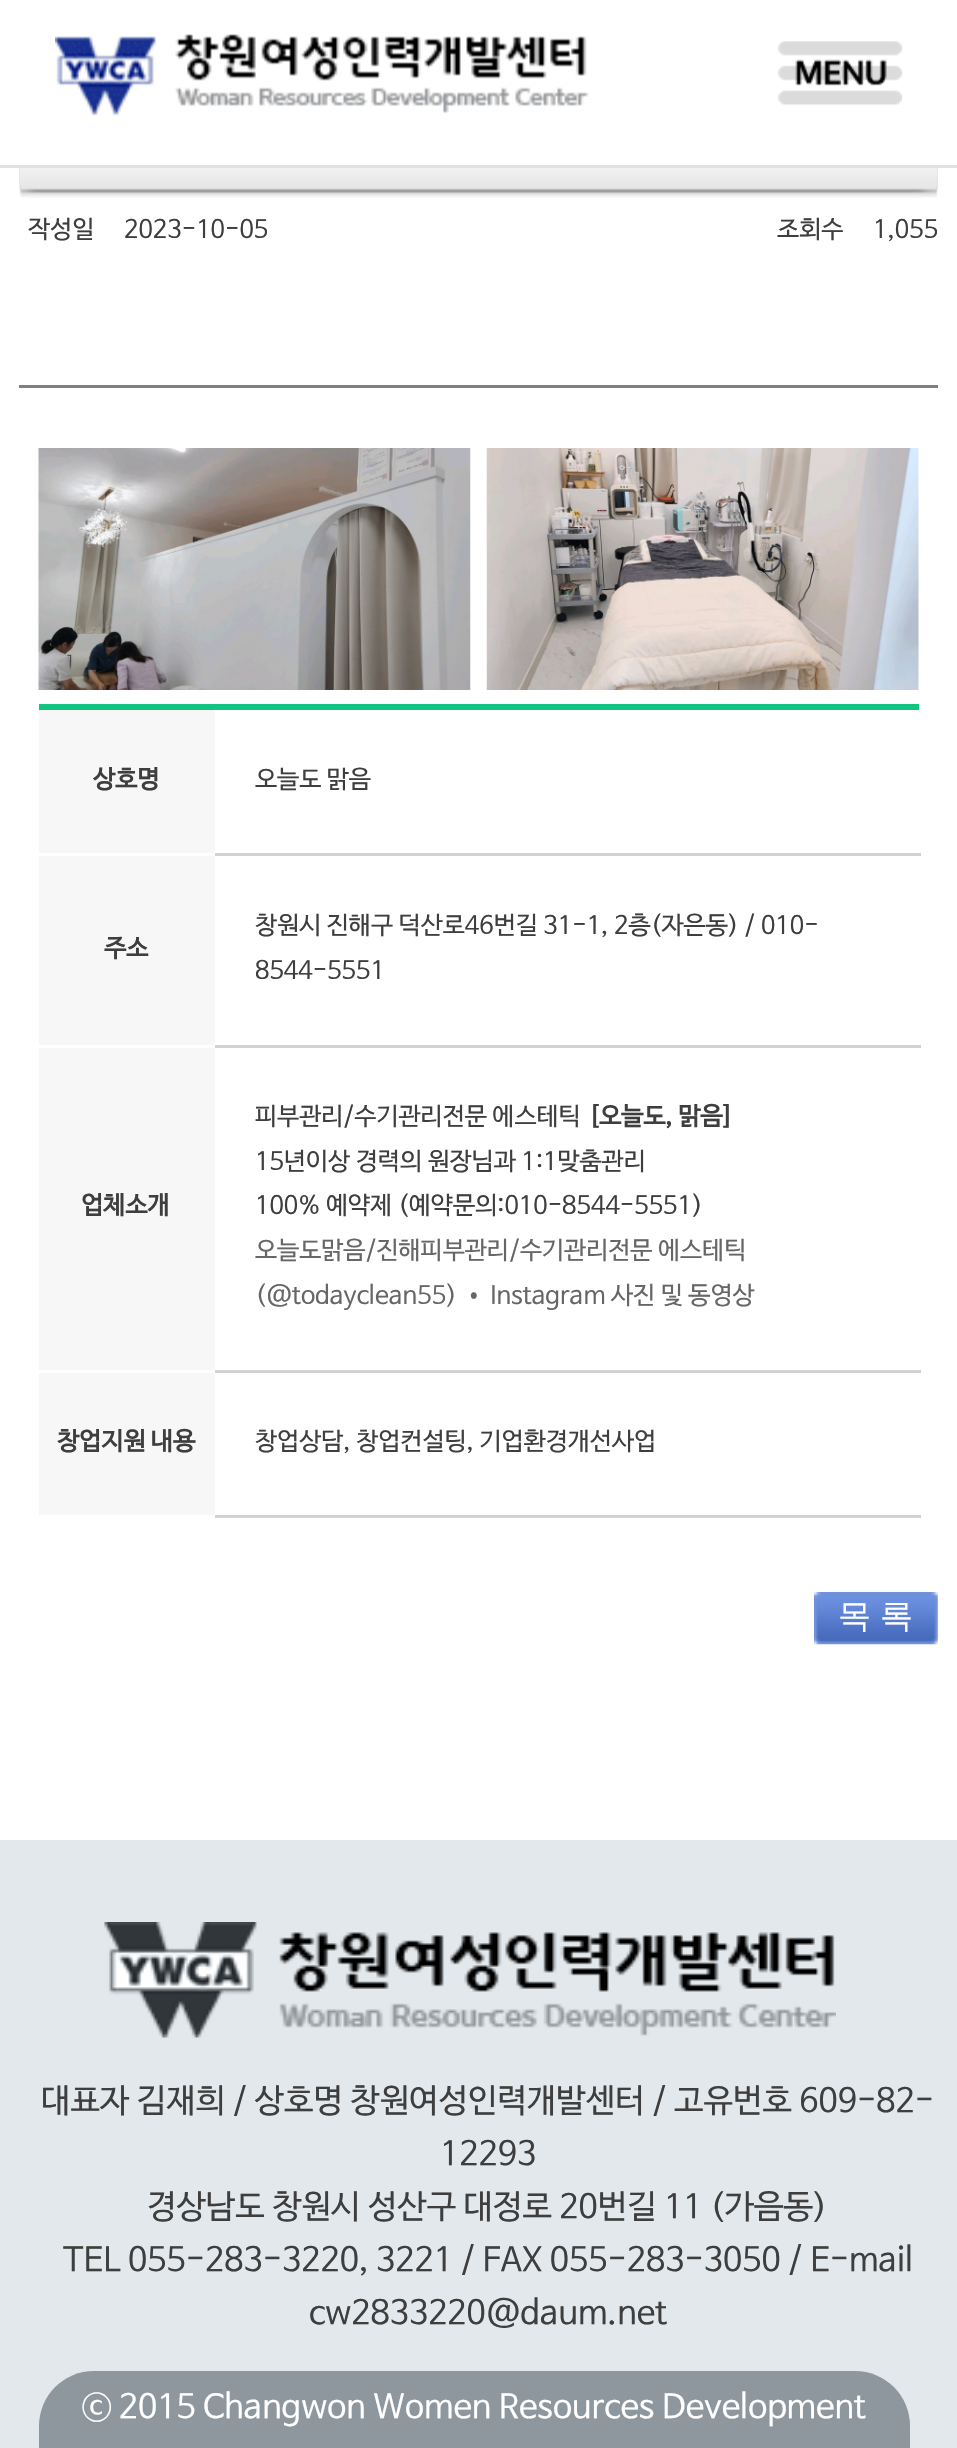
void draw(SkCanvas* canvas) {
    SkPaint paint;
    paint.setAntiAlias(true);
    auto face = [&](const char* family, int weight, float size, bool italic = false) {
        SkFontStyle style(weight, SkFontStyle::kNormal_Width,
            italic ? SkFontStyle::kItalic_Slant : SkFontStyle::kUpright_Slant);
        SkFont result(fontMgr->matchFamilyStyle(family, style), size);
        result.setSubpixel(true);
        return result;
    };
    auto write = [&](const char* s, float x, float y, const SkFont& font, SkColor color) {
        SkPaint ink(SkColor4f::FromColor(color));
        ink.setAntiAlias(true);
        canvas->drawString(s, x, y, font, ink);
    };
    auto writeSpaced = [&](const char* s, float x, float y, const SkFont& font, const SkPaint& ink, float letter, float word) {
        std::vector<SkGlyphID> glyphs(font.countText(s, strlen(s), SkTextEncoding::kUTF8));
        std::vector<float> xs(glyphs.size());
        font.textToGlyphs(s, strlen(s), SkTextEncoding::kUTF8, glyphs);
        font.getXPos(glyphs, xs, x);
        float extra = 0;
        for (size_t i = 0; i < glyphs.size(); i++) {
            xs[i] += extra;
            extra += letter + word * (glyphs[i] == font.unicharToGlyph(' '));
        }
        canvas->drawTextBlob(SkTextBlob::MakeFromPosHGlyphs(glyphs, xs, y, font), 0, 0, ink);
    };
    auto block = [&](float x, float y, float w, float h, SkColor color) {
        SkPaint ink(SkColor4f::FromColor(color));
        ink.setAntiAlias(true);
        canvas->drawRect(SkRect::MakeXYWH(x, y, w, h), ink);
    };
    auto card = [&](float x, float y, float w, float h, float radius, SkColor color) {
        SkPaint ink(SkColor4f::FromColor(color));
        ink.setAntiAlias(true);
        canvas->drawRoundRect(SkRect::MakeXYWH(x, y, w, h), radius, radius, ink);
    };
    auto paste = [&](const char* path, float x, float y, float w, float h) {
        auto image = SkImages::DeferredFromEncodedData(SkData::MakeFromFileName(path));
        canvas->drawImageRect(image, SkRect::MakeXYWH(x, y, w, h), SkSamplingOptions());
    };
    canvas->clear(SK_ColorWHITE);
    block(0, 165, 957, 3, SkColorSetRGB(225, 225, 225));
    paste("pic1.png", 55, 34, 534, 82);
    paste("pic2.png", 778, 41, 124, 64);
    block(19, 385, 919, 3, SkColorSetRGB(127, 127, 127));
    paste("pic3.png", 19, 168, 919, 30);
    auto kFont1 = face("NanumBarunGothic", 400, 24.75f);
    write("작성일", 28, 237, kFont1, SkColorSetRGB(62, 62, 62));
    write("2023-10-05", 124, 237, kFont1, SkColorSetRGB(62, 62, 62));
    write("조회수", 777, 237, kFont1, SkColorSetRGB(62, 62, 62));
    write("1,055", 873, 237, kFont1, SkColorSetRGB(62, 62, 62));
    paste("pic4.png", 38, 448, 433, 242);
    paste("pic5.png", 486, 448, 433, 242);
    block(39, 704, 880, 6, SkColorSetRGB(18, 196, 130));
    block(39, 710, 176, 143, SkColorSetRGB(247, 247, 247));
    block(212, 853, 709, 3, SkColorSetRGB(210, 210, 210));
    block(212, 853, 3, 3, SK_ColorWHITE);
    auto kFont2 = face("NanumBarunGothic", 700, 24.75f);
    write("상호명", 93, 787, kFont2, SkColorSetRGB(62, 62, 62));
    write("오늘도 맑음", 255, 787, kFont1, SkColorSetRGB(62, 62, 62));
    block(39, 856, 176, 189, SkColorSetRGB(247, 247, 247));
    block(212, 1045, 709, 3, SkColorSetRGB(210, 210, 210));
    block(212, 1045, 3, 3, SK_ColorWHITE);
    write("주소", 104, 956, kFont2, SkColorSetRGB(62, 62, 62));
    write("창원시 진해구 덕산로46번길 31-1, 2층(자은동) / 010-", 255, 933, kFont1, SkColorSetRGB(62, 62, 62));
    write("8544-5551", 255, 978, kFont1, SkColorSetRGB(62, 62, 62));
    block(39, 1048, 176, 322, SkColorSetRGB(247, 247, 247));
    block(212, 1370, 709, 3, SkColorSetRGB(210, 210, 210));
    block(212, 1370, 3, 3, SK_ColorWHITE);
    write("업체소개", 81, 1213, kFont2, SkColorSetRGB(62, 62, 62));
    write("피부관리/수기관리전문 에스테틱", 255, 1124, kFont1, SkColorSetRGB(62, 62, 62));
    write("[오늘도, 맑음]", 588, 1124, kFont2, SkColorSetRGB(62, 62, 62));
    write("15년이상 경력의 원장님과 1:1맞춤관리", 255, 1169, kFont1, SkColorSetRGB(62, 62, 62));
    write("100% 예약제 (예약문의:010-8544-5551)", 255, 1213, kFont1, SkColorSetRGB(62, 62, 62));
    write("오늘도맑음/진해피부관리/수기관리전문 에스테틱", 255, 1258, kFont1, SkColorSetRGB(102, 102, 102));
    write("(@todayclean55) • Instagram 사진 및 동영상", 255, 1303, kFont1, SkColorSetRGB(102, 102, 102));
    block(39, 1373, 176, 142, SkColorSetRGB(247, 247, 247));
    block(212, 1515, 709, 3, SkColorSetRGB(210, 210, 210));
    block(212, 1515, 3, 3, SK_ColorWHITE);
    write("창업지원 내용", 57, 1449, kFont2, SkColorSetRGB(62, 62, 62));
    write("창업상담, 창업컨설팅, 기업환경개선사업", 255, 1449, kFont1, SkColorSetRGB(62, 62, 62));
    paste("pic6.png", 814, 1592, 124, 53);
    auto kFont3 = face("WenQuanYi Zen Hei", 500, 33);
    paint.setColor(SK_ColorWHITE);
    writeSpaced("목 록", 838, 1627, kFont3, paint, 0, -1);
    block(0, 1840, 957, 608, SkColorSetRGB(226, 232, 236));
    paste("pic7.png", 104, 1922, 732, 116);
    auto kFont4 = face("NanumBarunGothic", 400, 33);
    write("대표자 김재희 / 상호명 창원여성인력개발센터 / 고유번호 609-82-", 41, 2111, kFont4, SkColorSetRGB(62, 62, 62));
    write("12293", 440, 2164, kFont4, SkColorSetRGB(62, 62, 62));
    write("경상남도 창원시 성산구 대정로 20번길 11 (가음동)", 147, 2217, kFont4, SkColorSetRGB(62, 62, 62));
    write("TEL 055-283-3220, 3221 / FAX 055-283-3050 / E-mail", 63, 2270, kFont4, SkColorSetRGB(62, 62, 62));
    write("cw2833220@daum.net", 309, 2323, kFont4, SkColorSetRGB(62, 62, 62));
    card(39, 2371, 871, 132, 55, SkColorSetRGB(142, 151, 157));
    write("ⓒ 2015 Changwon Women Resources Development", 82, 2417, kFont4, SK_ColorWHITE);
}
